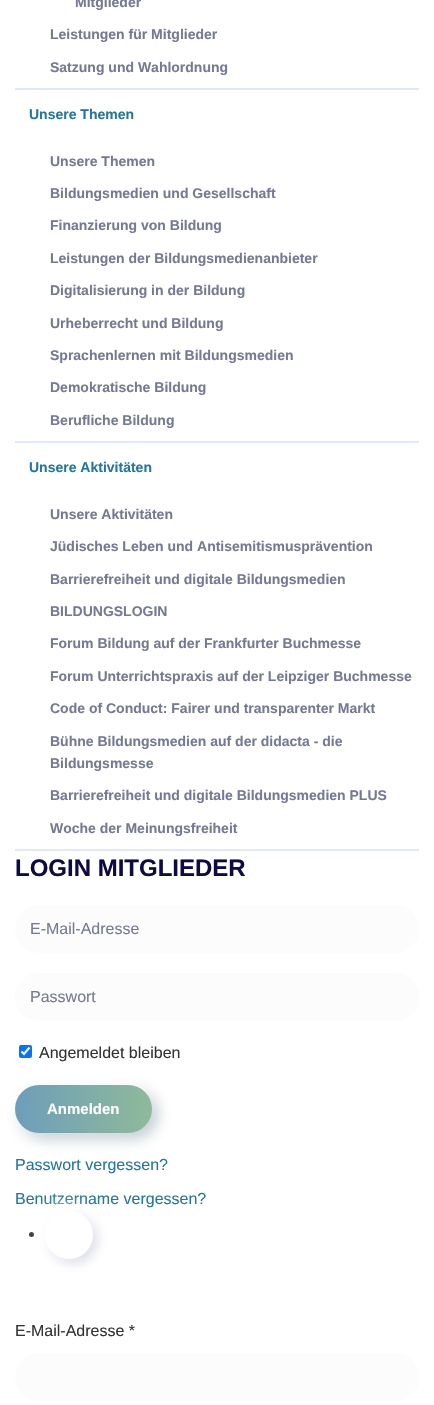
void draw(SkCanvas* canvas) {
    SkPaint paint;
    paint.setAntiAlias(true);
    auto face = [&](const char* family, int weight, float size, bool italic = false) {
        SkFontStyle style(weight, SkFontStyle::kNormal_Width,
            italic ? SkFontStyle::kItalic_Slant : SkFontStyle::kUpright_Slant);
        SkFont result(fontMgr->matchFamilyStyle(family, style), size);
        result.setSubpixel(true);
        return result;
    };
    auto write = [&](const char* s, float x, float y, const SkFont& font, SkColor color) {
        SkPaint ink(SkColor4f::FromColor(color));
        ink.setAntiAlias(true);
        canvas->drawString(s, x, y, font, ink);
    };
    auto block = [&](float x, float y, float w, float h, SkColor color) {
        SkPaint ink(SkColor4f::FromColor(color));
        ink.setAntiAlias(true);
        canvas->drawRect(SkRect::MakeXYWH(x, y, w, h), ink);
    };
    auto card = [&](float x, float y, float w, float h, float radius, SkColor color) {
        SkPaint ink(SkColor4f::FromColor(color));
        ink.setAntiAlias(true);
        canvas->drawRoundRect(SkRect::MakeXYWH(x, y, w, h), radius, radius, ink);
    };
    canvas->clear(SK_ColorWHITE);
    block(15, 88, 404, 2, SkColorSetRGB(225, 231, 255));
    auto kFont1 = face("Liberation Sans", 700, 14);
    write("Mitglieder", 75, 7, kFont1, SkColorSetRGB(116, 122, 150));
    write("Leistungen für Mitglieder", 50, 39, kFont1, SkColorSetRGB(116, 122, 150));
    write("Satzung und Wahlordnung", 50, 72, kFont1, SkColorSetRGB(116, 122, 150));
    block(15, 441, 404, 2, SkColorSetRGB(225, 231, 255));
    write("Unsere Themen", 29, 119, kFont1, SkColorSetRGB(34, 119, 160));
    write("Unsere Themen", 50, 166, kFont1, SkColorSetRGB(116, 122, 150));
    write("Bildungsmedien und Gesellschaft", 50, 198, kFont1, SkColorSetRGB(116, 122, 150));
    write("Finanzierung von Bildung", 50, 230, kFont1, SkColorSetRGB(116, 122, 150));
    write("Leistungen der Bildungsmedienanbieter", 50, 263, kFont1, SkColorSetRGB(116, 122, 150));
    write("Digitalisierung in der Bildung", 50, 295, kFont1, SkColorSetRGB(116, 122, 150));
    write("Urheberrecht und Bildung", 50, 328, kFont1, SkColorSetRGB(116, 122, 150));
    write("Sprachenlernen mit Bildungsmedien", 50, 360, kFont1, SkColorSetRGB(116, 122, 150));
    write("Demokratische Bildung", 50, 392, kFont1, SkColorSetRGB(116, 122, 150));
    write("Berufliche Bildung", 50, 425, kFont1, SkColorSetRGB(116, 122, 150));
    block(15, 849, 404, 2, SkColorSetRGB(225, 231, 255));
    write("Unsere Aktivitäten", 29, 472, kFont1, SkColorSetRGB(34, 119, 160));
    write("Unsere Aktivitäten", 50, 519, kFont1, SkColorSetRGB(116, 122, 150));
    write("Jüdisches Leben und Antisemitismusprävention", 50, 551, kFont1, SkColorSetRGB(116, 122, 150));
    write("Barrierefreiheit und digitale Bildungsmedien", 50, 584, kFont1, SkColorSetRGB(116, 122, 150));
    write("BILDUNGSLOGIN", 50, 616, kFont1, SkColorSetRGB(116, 122, 150));
    write("Forum Bildung auf der Frankfurter Buchmesse", 50, 648, kFont1, SkColorSetRGB(116, 122, 150));
    write("Forum Unterrichtspraxis auf der Leipziger Buchmesse", 50, 681, kFont1, SkColorSetRGB(116, 122, 150));
    write("Code of Conduct: Fairer und transparenter Markt", 50, 713, kFont1, SkColorSetRGB(116, 122, 150));
    write("Bühne Bildungsmedien auf der didacta - die", 50, 746, kFont1, SkColorSetRGB(116, 122, 150));
    write("Bildungsmesse", 50, 768, kFont1, SkColorSetRGB(116, 122, 150));
    write("Barrierefreiheit und digitale Bildungsmedien PLUS", 50, 800, kFont1, SkColorSetRGB(116, 122, 150));
    write("Woche der Meinungsfreiheit", 50, 833, kFont1, SkColorSetRGB(116, 122, 150));
    auto kFont2 = face("Liberation Sans", 700, 24);
    write("LOGIN MITGLIEDER", 15, 876, kFont2, SkColorSetRGB(13, 10, 70));
    card(15, 905, 404, 48, 24, SkColorSetRGB(252, 252, 252));
    auto kFont3 = face("Liberation Sans", 400, 16);
    write("E-Mail-Adresse", 30, 934, kFont3, SkColorSetRGB(116, 122, 150));
    card(15, 973, 404, 48, 24, SkColorSetRGB(252, 252, 252));
    write("Passwort", 30, 1002, kFont3, SkColorSetRGB(116, 122, 150));
    card(19, 1045, 13, 13, 2, SkColorSetRGB(0, 117, 255));
    paint.setStyle(SkPaint::kStroke_Style);
    paint.setStrokeWidth(2.1f);
    paint.setColor(SK_ColorWHITE);
    canvas->drawPath(SkPathBuilder().moveTo(21.5f, 1051.5f).lineTo(24, 1054).lineTo(29.5f, 1047.5f).detach(), paint);
    write("Angemeldet bleiben", 39, 1058, kFont3, SkColorSetRGB(51, 51, 51));
    paint.setStyle(SkPaint::kFill_Style);
    paint.setColor(SkColorSetARGB(77, 16, 56, 76));
    paint.setMaskFilter(SkMaskFilter::MakeBlur(kNormal_SkBlurStyle, 7.5f));
    canvas->drawRoundRect(SkRect::MakeXYWH(20, 1090, 137, 48), 24, 24, paint);
    paint.setMaskFilter(nullptr);
    paint.setColor(SkColorSetARGB(230, 255, 255, 255));
    paint.setMaskFilter(SkMaskFilter::MakeBlur(kNormal_SkBlurStyle, 7.5f));
    canvas->drawRoundRect(SkRect::MakeXYWH(10, 1080, 137, 48), 24, 24, paint);
    paint.setMaskFilter(nullptr);
    {
        const SkColor colors[] = {SkColorSetRGB(194, 211, 222), SkColorSetRGB(109, 158, 186), SkColorSetRGB(143, 186, 154)};
        const float stops[] = {0, 0.5f, 1};
        const SkPoint ends[] = {{-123, 1102}, {153, 1116}};
        paint.setShader(SkGradientShader::MakeLinear(ends, colors, stops, 3, SkTileMode::kClamp));
        paint.setAlpha(255);
    }
    canvas->drawRoundRect(SkRect::MakeXYWH(15, 1085, 137, 48), 24, 24, paint);
    auto kFont4 = face("Liberation Sans", 700, 15);
    write("Anmelden", 47, 1114, kFont4, SK_ColorWHITE);
    write("Passwort vergessen?", 15, 1170, kFont3, SkColorSetRGB(34, 119, 160));
    write("Benutzername vergessen?", 15, 1204, kFont3, SkColorSetRGB(34, 119, 160));
    paint.setShader(nullptr);
    paint.setColor(SkColorSetRGB(51, 51, 51));
    canvas->drawCircle(31.5f, 1234.5f, 2.5f, paint);
    paint.setColor(SkColorSetARGB(51, 57, 65, 124));
    paint.setMaskFilter(SkMaskFilter::MakeBlur(kNormal_SkBlurStyle, 6));
    canvas->drawRoundRect(SkRect::MakeXYWH(49, 1215, 48, 48), 24, 24, paint);
    paint.setMaskFilter(nullptr);
    paint.setColor(SkColorSetARGB(230, 255, 255, 255));
    paint.setMaskFilter(SkMaskFilter::MakeBlur(kNormal_SkBlurStyle, 7.5f));
    canvas->drawRoundRect(SkRect::MakeXYWH(40, 1206, 48, 48), 24, 24, paint);
    paint.setMaskFilter(nullptr);
    paint.setColor(SK_ColorWHITE);
    canvas->drawCircle(69, 1235, 24, paint);
    write("E-Mail-Adresse *", 15, 1336, kFont3, SkColorSetRGB(51, 51, 51));
    card(15, 1353, 404, 48, 24, SkColorSetRGB(252, 252, 252));
}
